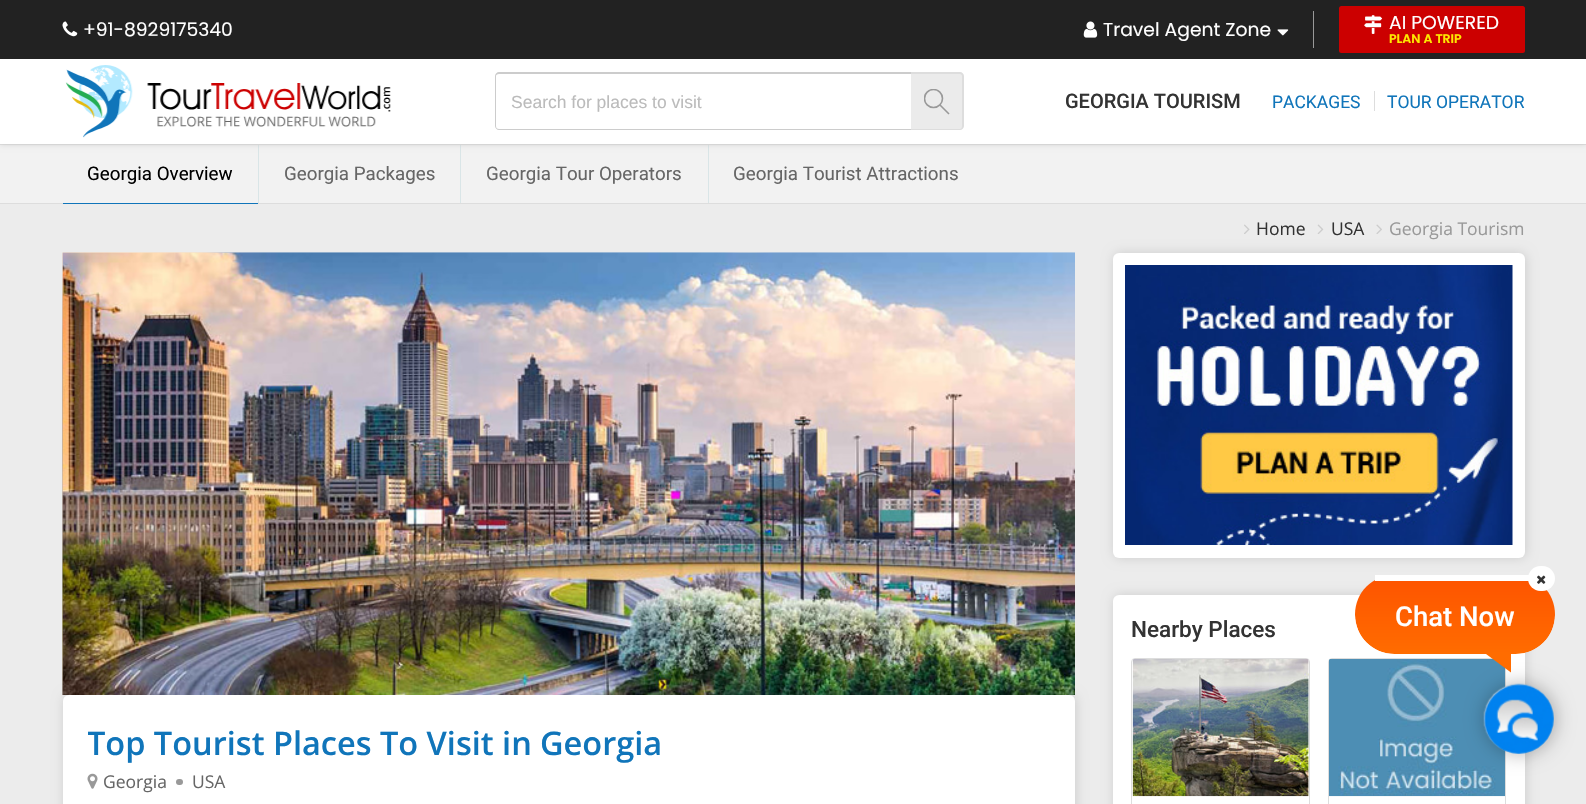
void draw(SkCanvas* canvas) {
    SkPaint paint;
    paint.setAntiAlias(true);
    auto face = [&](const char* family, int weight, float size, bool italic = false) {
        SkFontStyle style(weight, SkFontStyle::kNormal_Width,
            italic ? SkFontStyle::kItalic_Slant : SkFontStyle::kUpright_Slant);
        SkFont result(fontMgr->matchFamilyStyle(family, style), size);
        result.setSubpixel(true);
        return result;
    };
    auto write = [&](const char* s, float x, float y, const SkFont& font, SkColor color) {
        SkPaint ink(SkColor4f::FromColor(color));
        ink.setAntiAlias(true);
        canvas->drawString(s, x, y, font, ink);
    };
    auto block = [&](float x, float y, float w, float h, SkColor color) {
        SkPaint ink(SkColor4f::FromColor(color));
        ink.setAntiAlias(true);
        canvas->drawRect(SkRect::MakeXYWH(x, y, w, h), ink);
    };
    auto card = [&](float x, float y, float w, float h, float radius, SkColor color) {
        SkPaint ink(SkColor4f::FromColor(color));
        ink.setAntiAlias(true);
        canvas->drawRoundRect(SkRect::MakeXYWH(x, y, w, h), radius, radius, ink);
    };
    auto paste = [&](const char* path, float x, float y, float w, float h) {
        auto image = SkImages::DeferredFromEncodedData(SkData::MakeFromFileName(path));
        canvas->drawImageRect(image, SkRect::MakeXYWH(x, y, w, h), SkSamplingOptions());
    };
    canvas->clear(SkColorSetRGB(236, 236, 236));
    block(0, 145, 1586, 58, SkColorSetRGB(242, 242, 242));
    block(0, 144, 1586, 1, SkColorSetRGB(221, 221, 221));
    block(258, 145, 1, 58, SkColorSetRGB(217, 229, 231));
    block(460, 145, 1, 58, SkColorSetRGB(217, 229, 231));
    block(708, 145, 1, 58, SkColorSetRGB(217, 229, 231));
    paint.setColor(SkColorSetRGB(204, 204, 204));
    paint.setMaskFilter(SkMaskFilter::MakeBlur(kNormal_SkBlurStyle, 3));
    canvas->drawRect(SkRect::MakeXYWH(0, 0, 1586, 144), paint);
    paint.setMaskFilter(nullptr);
    block(0, 0, 1586, 59, SkColorSetRGB(34, 34, 34));
    paste("pic1.png", 62, 21, 16, 16);
    auto kFont1 = face("Poppins", 400, 18.75f);
    write("+91-8929175340", 83, 36, kFont1, SK_ColorWHITE);
    block(1313, 11, 1, 37, SkColorSetRGB(153, 153, 153));
    paste("pic2.png", 1083, 21, 15, 17);
    write("Travel Agent Zone", 1103, 36, kFont1, SK_ColorWHITE);
    paste("pic3.png", 1277, 29, 12, 7);
    card(1339, 6, 186, 47, 2.5f, SkColorSetRGB(204, 0, 0));
    paste("pic4.png", 1364, 15, 19, 19);
    write("AI POWERED", 1389, 29, kFont1, SK_ColorWHITE);
    auto kFont2 = face("Poppins", 600, 12.5f);
    write("PLAN A TRIP", 1389, 43, kFont2, SkColorSetRGB(254, 233, 0));
    block(0, 59, 1586, 85, SK_ColorWHITE);
    paste("pic5.png", 65, 65, 326, 73);
    canvas->drawPath(SkPathBuilder(SkPathFillType::kEvenOdd).moveTo(499, 72).lineTo(911, 72).lineTo(911, 130).lineTo(499, 130).cubicTo(497, 130, 495, 128, 495, 126).lineTo(495, 76).cubicTo(495, 74, 497, 72, 499, 72).close().moveTo(499, 74).lineTo(911, 74).lineTo(911, 129).lineTo(499, 129).cubicTo(497, 129, 496, 128, 496, 126).lineTo(496, 76).cubicTo(496, 75, 497, 74, 499, 74).close().detach(), paint);
    auto kFont3 = face("Liberation Sans", 400, 17.5f);
    write("Search for places to visit", 511, 108, kFont3, SkColorSetRGB(187, 187, 187));
    paint.setColor(SkColorSetRGB(235, 235, 235));
    canvas->drawPath(SkPathBuilder().moveTo(911, 74).lineTo(960.5f, 74).cubicTo(962, 74, 963, 75, 963, 76.5f).lineTo(963, 126.5f).cubicTo(963, 128, 962, 129, 960.5f, 129).lineTo(911, 129).close().detach(), paint);
    paint.setColor(SkColorSetRGB(221, 221, 221));
    canvas->drawPath(SkPathBuilder(SkPathFillType::kEvenOdd).moveTo(911, 72).lineTo(960, 72).cubicTo(962, 72, 964, 74, 964, 76).lineTo(964, 126).cubicTo(964, 128, 962, 130, 960, 130).lineTo(911, 130).close().moveTo(911, 74).lineTo(960, 74).cubicTo(961, 74, 962, 75, 962, 76).lineTo(962, 126).cubicTo(962, 128, 961, 129, 960, 129).lineTo(911, 129).close().detach(), paint);
    canvas->save();
    canvas->clipRect(SkRect::MakeXYWH(924, 89, 26, 26));
    paint.setStyle(SkPaint::kStroke_Style);
    paint.setStrokeWidth(1.6f);
    paint.setColor(SkColorSetRGB(153, 153, 153));
    canvas->drawCircle(933.5f, 98.5f, 9, paint);
    canvas->restore();
    paint.setStrokeJoin(SkPaint::kRound_Join);
    canvas->drawPath(SkPathBuilder().moveTo(940, 105).lineTo(949, 114).detach(), paint);
    auto kFont4 = face("Roboto", 500, 20);
    write("GEORGIA TOURISM", 1065, 108, kFont4, SkColorSetRGB(51, 51, 51));
    block(1374, 91, 1, 20, SkColorSetRGB(221, 221, 221));
    auto kFont5 = face("Roboto", 400, 17.5f);
    write("PACKAGES", 1272, 108, kFont5, SkColorSetRGB(16, 117, 186));
    write("TOUR OPERATOR", 1387, 108, kFont5, SkColorSetRGB(16, 117, 186));
    block(0, 203, 1586, 1, SkColorSetRGB(221, 221, 221));
    auto kFont6 = face("Roboto", 400, 18.75f);
    write("Georgia Overview", 87, 180, kFont6, SK_ColorBLACK);
    block(63, 203, 195, 1, SkColorSetRGB(16, 117, 186));
    write("Georgia Packages", 284, 180, kFont6, SkColorSetRGB(102, 102, 102));
    write("Georgia Tour Operators", 486, 180, kFont6, SkColorSetRGB(102, 102, 102));
    write("Georgia Tourist Attractions", 733, 180, kFont6, SkColorSetRGB(102, 102, 102));
    paste("pic6.png", 1244, 224, 6, 10);
    paint.setStyle(SkPaint::kFill_Style);
    paint.setColor(SkColorSetRGB(204, 204, 204));
    paint.setMaskFilter(SkMaskFilter::MakeBlur(kNormal_SkBlurStyle, 6));
    canvas->drawRoundRect(SkRect::MakeXYWH(1114, 253, 412, 305), 6, 6, paint);
    paint.setMaskFilter(nullptr);
    auto kFont7 = face("Open Sans", 400, 17.5f);
    write("Home", 1256, 235, kFont7, SkColorSetRGB(51, 51, 51));
    paste("pic7.png", 1317, 224, 7, 10);
    write("USA", 1331, 235, kFont7, SkColorSetRGB(51, 51, 51));
    paste("pic8.png", 1376, 224, 6, 10);
    write("Georgia Tourism", 1389, 235, kFont7, SkColorSetRGB(153, 153, 153));
    paint.setMaskFilter(SkMaskFilter::MakeBlur(kNormal_SkBlurStyle, 6));
    canvas->drawRoundRect(SkRect::MakeXYWH(1114, 595, 412, 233), 6, 6, paint);
    paint.setMaskFilter(nullptr);
    card(1113, 595, 412, 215, 6, SK_ColorWHITE);
    canvas->save();
    canvas->clipPath(SkPathBuilder().moveTo(1394.5f, 575).lineTo(1515.5f, 575).cubicTo(1537.5f, 575, 1555, 592.5f, 1555, 614.5f).cubicTo(1555, 636.5f, 1537.5f, 654, 1515.5f, 654).lineTo(1394.5f, 654).cubicTo(1372.5f, 654, 1355, 636.5f, 1355, 614.5f).cubicTo(1355, 592.5f, 1372.5f, 575, 1394.5f, 575).close().detach(), true);
    {
        const SkColor colors[] = {SkColorSetRGB(254, 85, 0), SkColorSetRGB(255, 108, 0)};
        const float stops[] = {0, 1};
        const SkPoint ends[] = {{1455, 581}, {1455, 654}};
        paint.setShader(SkGradientShader::MakeLinear(ends, colors, stops, 2, SkTileMode::kClamp));
        paint.setAlpha(255);
    }
    canvas->drawPath(SkPathBuilder().moveTo(1355, 581).lineTo(1555, 581).lineTo(1555, 614.5f).cubicTo(1555, 636.5f, 1537.5f, 654, 1515.5f, 654).lineTo(1394.5f, 654).cubicTo(1372.5f, 654, 1355, 636.5f, 1355, 614.5f).close().detach(), paint);
    canvas->restore();
    block(1375, 575, 160, 6, SK_ColorWHITE);
    card(1528, 566, 27, 25, 12.5f, SK_ColorWHITE);
    paste("pic9.png", 1537, 575, 9, 9);
    canvas->save();
    canvas->clipPath(SkPathBuilder().moveTo(1394.5f, 575).lineTo(1515.5f, 575).cubicTo(1537.5f, 575, 1555, 592.5f, 1555, 614.5f).cubicTo(1555, 636.5f, 1537.5f, 654, 1515.5f, 654).lineTo(1394.5f, 654).cubicTo(1372.5f, 654, 1355, 636.5f, 1355, 614.5f).cubicTo(1355, 592.5f, 1372.5f, 575, 1394.5f, 575).close().detach(), true);
    {
        const SkColor colors[] = {SkColorSetRGB(254, 85, 0), SkColorSetRGB(255, 108, 0)};
        const float stops[] = {0, 1};
        const SkPoint ends[] = {{1455, 509}, {1455, 581}};
        paint.setShader(SkGradientShader::MakeLinear(ends, colors, stops, 2, SkTileMode::kClamp));
        paint.setAlpha(255);
    }
    canvas->drawRect(SkRect::MakeXYWH(1373, 580, 2, 1), paint);
    canvas->restore();
    auto kFont8 = face("Roboto", 500, 27.5f);
    write("Chat Now", 1395, 626, kFont8, SK_ColorWHITE);
    paint.setStyle(SkPaint::kStroke_Style);
    paint.setStrokeWidth(1);
    paint.setStrokeJoin(SkPaint::kMiter_Join);
    paint.setShader(nullptr);
    paint.setColor(SkColorSetRGB(221, 221, 221));
    canvas->drawRoundRect(SkRect::MakeXYWH(1328.5f, 658.5f, 177, 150), 3.5f, 3.5f, paint);
    paste("pic13.png", 1329, 659, 176, 138);
    paint.setStyle(SkPaint::kFill_Style);
    paint.setColor(SkColorSetARGB(77, 0, 0, 0));
    paint.setMaskFilter(SkMaskFilter::MakeBlur(kNormal_SkBlurStyle, 9.5f));
    canvas->drawRoundRect(SkRect::MakeXYWH(1485, 684, 70, 70), 35, 35, paint);
    paint.setMaskFilter(nullptr);
    paint.setColor(SkColorSetRGB(255, 108, 0));
    canvas->drawPath(SkPathBuilder().moveTo(1486, 654).lineTo(1511, 654).lineTo(1511, 672.5f).close().detach(), paint);
    paste("pic10.png", 1483, 683, 71, 71);
    card(1113, 253, 412, 305, 6, SK_ColorWHITE);
    paste("pic11.png", 1125, 265, 388, 280);
    auto kFont9 = face("Roboto", 500, 22.5f);
    write("Nearby Places", 1131, 637, kFont9, SkColorSetRGB(51, 51, 51));
    paint.setStyle(SkPaint::kStroke_Style);
    paint.setColor(SkColorSetRGB(221, 221, 221));
    canvas->drawRoundRect(SkRect::MakeXYWH(1131.5f, 658.5f, 178, 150), 3.5f, 3.5f, paint);
    paste("pic12.png", 1132, 659, 177, 138);
    paint.setStyle(SkPaint::kFill_Style);
    paint.setColor(SkColorSetRGB(204, 204, 204));
    paint.setMaskFilter(SkMaskFilter::MakeBlur(kNormal_SkBlurStyle, 6));
    canvas->drawRoundRect(SkRect::MakeXYWH(64, 695, 1012, 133), 6, 6, paint);
    paint.setMaskFilter(nullptr);
    paste("pic14.png", 62, 252, 1013, 443);
    paste("pic15.png", 62, 252, 1013, 443);
    card(63, 695, 1012, 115, 6, SK_ColorWHITE);
    canvas->save();
    canvas->clipRect(SkRect::MakeXYWH(88, 720, 962, 45));
    auto kFont10 = face("Open Sans", 600, 32.5f);
    write("Top Tourist Places To Visit in", 87, 755, kFont10, SkColorSetRGB(16, 117, 186));
    canvas->restore();
    write("Georgia", 540, 755, kFont10, SkColorSetRGB(16, 117, 186));
    paste("pic16.png", 87, 773, 11, 16);
    write("Georgia", 103, 788, kFont7, SkColorSetRGB(102, 102, 102));
    card(176, 779, 7, 6, 3, SkColorSetRGB(153, 153, 153));
    write("USA", 192, 788, kFont7, SkColorSetRGB(102, 102, 102));
}
